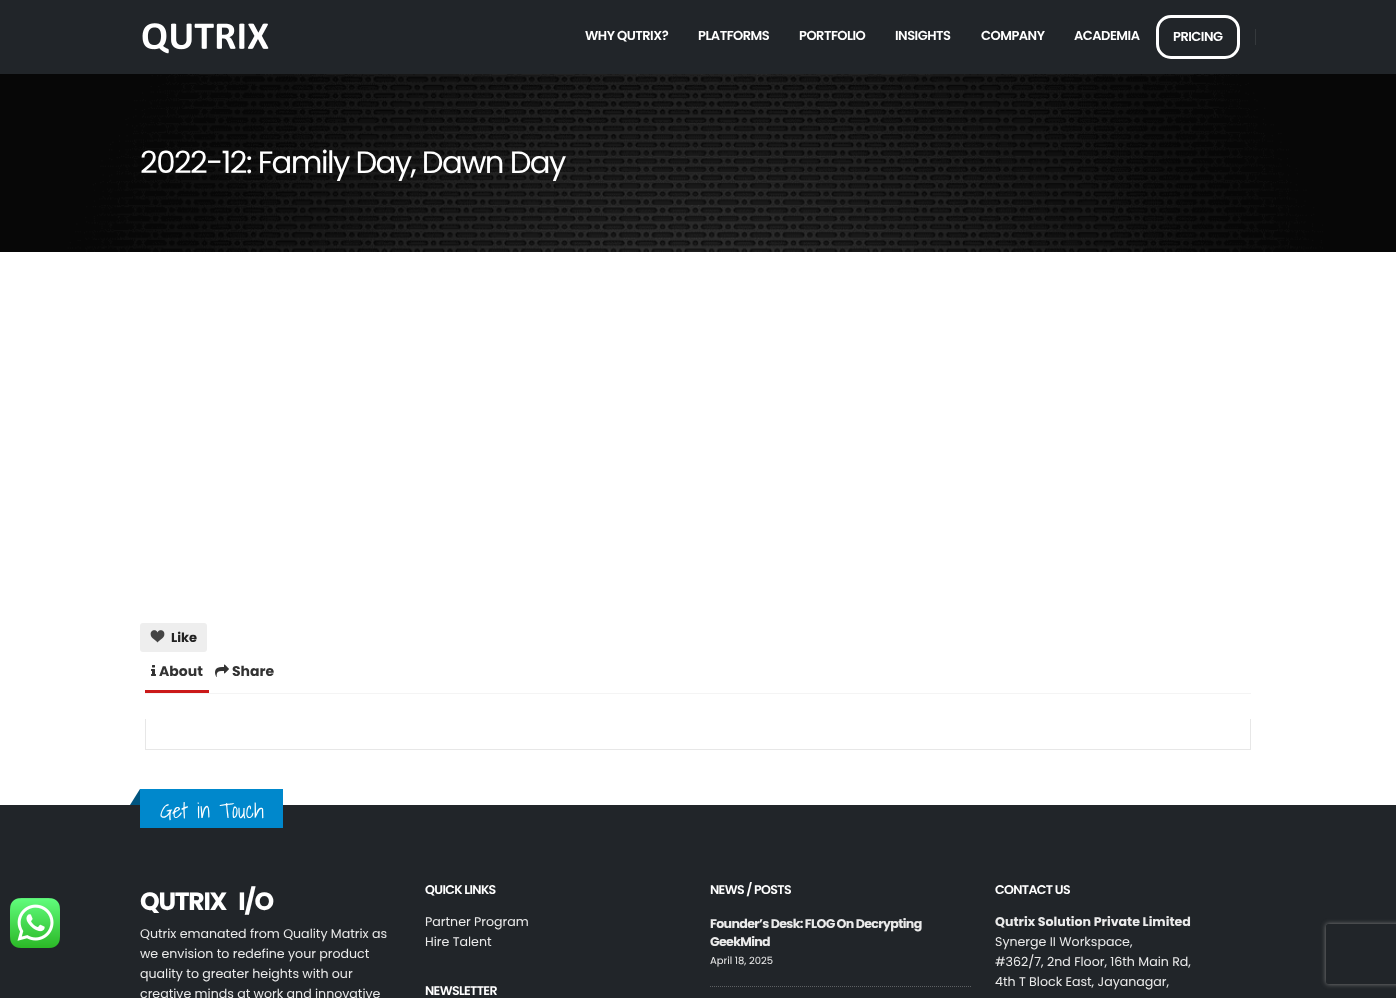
<svg xmlns="http://www.w3.org/2000/svg" width="1396" height="998">
<defs>
<clipPath id="clip1"><path d="M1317 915h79v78h-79zm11 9h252c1 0 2 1 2 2v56c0 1-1 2-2 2h-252c-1 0-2-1-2-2v-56c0-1 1-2 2-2z" clip-rule="evenodd"/></clipPath>
</defs>
<rect width="100%" height="100%" fill="#fff"/>
<rect y="805" width="1396" height="193" fill="#212529"/>
<image x="10" y="898" width="50" height="50" href="media/1.png"/>
<rect width="1396" height="74" fill="#212529"/>
<image x="142" y="23" width="127" height="31" href="media/2.png"/>
<text x="585" y="40" style="font-family:Poppins;font-size:13px;font-weight:600;letter-spacing:-0.5px;fill:#fff">WHY QUTRIX?</text>
<text x="698" y="40" style="font-family:Poppins;font-size:13px;font-weight:600;letter-spacing:-0.5px;fill:#fff">PLATFORMS</text>
<text x="799" y="40" style="font-family:Poppins;font-size:13px;font-weight:600;letter-spacing:-0.5px;fill:#fff">PORTFOLIO</text>
<text x="895" y="40" style="font-family:Poppins;font-size:13px;font-weight:600;letter-spacing:-0.5px;fill:#fff">INSIGHTS</text>
<text x="981" y="40" style="font-family:Poppins;font-size:13px;font-weight:600;letter-spacing:-0.5px;fill:#fff">COMPANY</text>
<text x="1074" y="40" style="font-family:Poppins;font-size:13px;font-weight:600;letter-spacing:-0.5px;fill:#fff">ACADEMIA</text>
<rect x="1157.5" y="16.5" width="81" height="41" rx="13.5" fill="none" stroke="#fff" stroke-width="3"/>
<text x="1173" y="41" style="font-family:Poppins;font-size:13px;font-weight:600;letter-spacing:-0.5px;fill:#fff">PRICING</text>
<rect x="1255" y="29" width="1" height="16" fill="#35393c"/>
<image x="0" y="74" width="1396" height="178" href="media/3.png"/>
<text x="140" y="173" style="font-family:Poppins;font-size:30.75px;letter-spacing:-1.55px;fill:#fff">2022-12: Family Day, Dawn Day</text>
<rect x="140" y="623" width="67" height="29" rx="3" fill="#eee"/>
<image x="150" y="630" width="15" height="13" href="media/4.png"/>
<text x="171" y="642" style="font-family:Poppins;font-size:13px;font-weight:bold;fill:#222">Like</text>
<rect x="145" y="690" width="64" height="3" fill="#cb1919"/>
<image x="151" y="665" width="5" height="11" href="media/5.png"/>
<text x="159" y="676" style="font-family:Poppins;font-size:14px;font-weight:bold;fill:#333">About</text>
<image x="215" y="664" width="14" height="13" href="media/6.png"/>
<text x="232" y="676" style="font-family:Poppins;font-size:14px;font-weight:bold;fill:#333">Share</text>
<rect x="145" y="693" width="1106" height="1" fill="#f4f4f4"/>
<rect x="1250" y="719" width="1" height="31" fill="#e7e7e7"/>
<rect x="145" y="749" width="1106" height="1" fill="#e7e7e7"/>
<rect x="145" y="719" width="1" height="31" fill="#e7e7e7"/>
<rect x="140" y="789" width="143" height="39" fill="#08c"/>
<path d="M140 789v16h-10z" fill="#005580"/>
<text x="160" y="818" style="font-family:Shadows Into Light;font-size:21px;font-weight:300;fill:#fff">Get in Touch</text>
<text x="140" y="910" style="font-family:Poppins;font-size:25px;font-weight:bold;letter-spacing:-1.25px;fill:#fff" xml:space="preserve">QUTRIX   I/O</text>
<text x="140" y="938" style="font-family:Poppins;font-size:12.6px;fill:#eaeaea">Qutrix emanated from Quality Matrix as</text>
<text x="140" y="958" style="font-family:Poppins;font-size:12.6px;fill:#eaeaea">we envision to redefine your product</text>
<text x="140" y="978" style="font-family:Poppins;font-size:12.6px;fill:#eaeaea">quality to greater heights with our</text>
<text x="140" y="998" style="font-family:Poppins;font-size:12.6px;fill:#eaeaea">creative minds at work and innovative</text>
<text x="425" y="894" style="font-family:Poppins;font-size:12.6px;font-weight:600;letter-spacing:-0.65px;fill:#fff">QUICK LINKS</text>
<text x="425" y="926" style="font-family:Poppins;font-size:12.6px;fill:#eaeaea">Partner Program</text>
<text x="425" y="946" style="font-family:Poppins;font-size:12.6px;fill:#eaeaea">Hire Talent</text>
<text x="425" y="995" style="font-family:Poppins;font-size:12.6px;font-weight:600;letter-spacing:-0.65px;fill:#fff">NEWSLETTER</text>
<text x="710" y="894" style="font-family:Poppins;font-size:12.6px;font-weight:600;letter-spacing:-0.65px;fill:#fff">NEWS / POSTS</text>
<text x="710" y="928" style="font-family:Poppins;font-size:12.6px;font-weight:bold;letter-spacing:-0.65px;fill:#eaeaea">Founder’s Desk: FLOG On Decrypting</text>
<text x="710" y="946" style="font-family:Poppins;font-size:12.6px;font-weight:bold;letter-spacing:-0.65px;fill:#eaeaea">GeekMind</text>
<text x="710" y="964" style="font-family:Poppins;font-size:10px;fill:#eaeaea">April 18, 2025</text>
<path d="M710 986.5h261" fill="none" stroke="#5d6063" stroke-dasharray="1 1"/>
<text x="995" y="894" style="font-family:Poppins;font-size:12.6px;font-weight:600;letter-spacing:-0.65px;fill:#fff">CONTACT US</text>
<text x="995" y="926" style="font-family:Poppins;font-size:12.6px;font-weight:bold;fill:#eaeaea">Qutrix Solution Private Limited</text>
<text x="995" y="946" style="font-family:Poppins;font-size:12.6px;fill:#eaeaea">Synerge II Workspace,</text>
<text x="995" y="966" style="font-family:Poppins;font-size:12.6px;fill:#eaeaea">#362/7, 2nd Floor, 16th Main Rd,</text>
<text x="995" y="986" style="font-family:Poppins;font-size:12.6px;fill:#eaeaea">4th T Block East, Jayanagar,</text>
<g clip-path="url(#clip1)">
<rect x="1326" y="924" width="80" height="60" rx="2" fill="#808080" filter="blur(2.5px)"/>
</g>
</svg>
